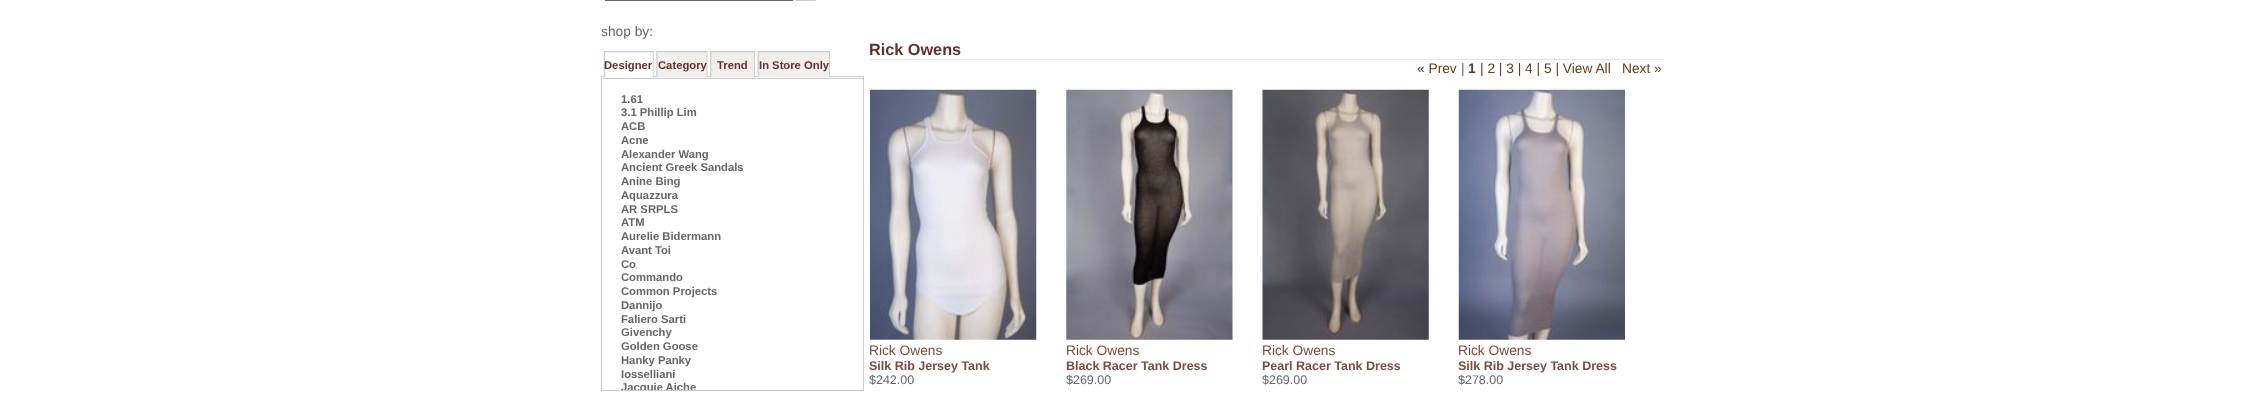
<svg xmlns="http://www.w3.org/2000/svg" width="2268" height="401">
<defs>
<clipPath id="clip1"><rect x="603" y="78" width="260" height="312"/></clipPath>
</defs>
<rect width="100%" height="100%" fill="#fff"/>
<rect x="605.5" y="-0.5" width="187" height="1" fill="none" stroke="#676767"/>
<image x="796" y="0" width="21" height="1" href="media/1.png"/>
<text x="601" y="36" style="font-family:Liberation Sans;font-size:13.75px;fill:#666">shop by:</text>
<rect x="601.5" y="76.5" width="262" height="314" fill="none" stroke="#cbcbcb"/>
<image x="603" y="51" width="51" height="27" href="media/2.png"/>
<image x="603" y="51" width="50" height="27" href="media/3.png"/>
<text x="604" y="69" style="font-family:Liberation Sans;font-size:11.25px;font-weight:bold;fill:#623226">Designer</text>
<image x="656" y="51" width="52" height="27" href="media/4.png"/>
<image x="656" y="51" width="51" height="27" href="media/5.png"/>
<text x="658" y="69" style="font-family:Liberation Sans;font-size:11.25px;font-weight:bold;fill:#623226">Category</text>
<image x="710" y="51" width="45" height="27" href="media/6.png"/>
<image x="710" y="52" width="44" height="26" href="media/7.png"/>
<text x="717" y="69" style="font-family:Liberation Sans;font-size:11.25px;font-weight:bold;fill:#623226">Trend</text>
<image x="757" y="51" width="73" height="27" href="media/8.png"/>
<image x="757" y="51" width="72" height="27" href="media/9.png"/>
<text x="759" y="69" style="font-family:Liberation Sans;font-size:11.25px;font-weight:bold;fill:#623226">In Store Only</text>
<rect x="603" y="78" width="260" height="1" fill="#ccc"/>
<text x="621" y="103" style="font-family:Liberation Sans;font-size:11.25px;font-weight:bold;fill:#666">1.61</text>
<text x="621" y="116" style="font-family:Liberation Sans;font-size:11.25px;font-weight:bold;fill:#666">3.1 Phillip Lim</text>
<text x="621" y="130" style="font-family:Liberation Sans;font-size:11.25px;font-weight:bold;fill:#666">ACB</text>
<text x="621" y="144" style="font-family:Liberation Sans;font-size:11.25px;font-weight:bold;fill:#666">Acne</text>
<text x="621" y="158" style="font-family:Liberation Sans;font-size:11.25px;font-weight:bold;fill:#666">Alexander Wang</text>
<text x="621" y="171" style="font-family:Liberation Sans;font-size:11.25px;font-weight:bold;fill:#666">Ancient Greek Sandals</text>
<text x="621" y="185" style="font-family:Liberation Sans;font-size:11.25px;font-weight:bold;fill:#666">Anine Bing</text>
<text x="621" y="199" style="font-family:Liberation Sans;font-size:11.25px;font-weight:bold;fill:#666">Aquazzura</text>
<text x="621" y="213" style="font-family:Liberation Sans;font-size:11.25px;font-weight:bold;fill:#666">AR SRPLS</text>
<text x="621" y="226" style="font-family:Liberation Sans;font-size:11.25px;font-weight:bold;fill:#666">ATM</text>
<text x="621" y="240" style="font-family:Liberation Sans;font-size:11.25px;font-weight:bold;fill:#666">Aurelie Bidermann</text>
<text x="621" y="254" style="font-family:Liberation Sans;font-size:11.25px;font-weight:bold;fill:#666">Avant Toi</text>
<text x="621" y="268" style="font-family:Liberation Sans;font-size:11.25px;font-weight:bold;fill:#666">Co</text>
<text x="621" y="281" style="font-family:Liberation Sans;font-size:11.25px;font-weight:bold;fill:#666">Commando</text>
<text x="621" y="295" style="font-family:Liberation Sans;font-size:11.25px;font-weight:bold;fill:#666">Common Projects</text>
<text x="621" y="309" style="font-family:Liberation Sans;font-size:11.25px;font-weight:bold;fill:#666">Dannijo</text>
<text x="621" y="323" style="font-family:Liberation Sans;font-size:11.25px;font-weight:bold;fill:#666">Faliero Sarti</text>
<text x="621" y="336" style="font-family:Liberation Sans;font-size:11.25px;font-weight:bold;fill:#666">Givenchy</text>
<text x="621" y="350" style="font-family:Liberation Sans;font-size:11.25px;font-weight:bold;fill:#666">Golden Goose</text>
<text x="621" y="364" style="font-family:Liberation Sans;font-size:11.25px;font-weight:bold;fill:#666">Hanky Panky</text>
<text x="621" y="378" style="font-family:Liberation Sans;font-size:11.25px;font-weight:bold;fill:#666">Iosselliani</text>
<g clip-path="url(#clip1)">
<text x="621" y="391" style="font-family:Liberation Sans;font-size:11.25px;font-weight:bold;fill:#666">Jacquie Aiche</text>
</g>
<rect x="870" y="59" width="793" height="1" fill="#e6e6e6"/>
<text x="869" y="55" style="font-family:Liberation Sans;font-size:16.25px;font-weight:bold;fill:#623226">Rick Owens</text>
<text x="1417" y="73" style="font-family:Liberation Sans;font-size:13.75px;fill:#673c12">« Prev</text>
<text x="1461" y="73" style="font-family:Liberation Sans;font-size:13.75px;fill:#666">|</text>
<text x="1468" y="73" style="font-family:Liberation Sans;font-size:13.75px;font-weight:bold;fill:#673c12">1</text>
<text x="1480" y="73" style="font-family:Liberation Sans;font-size:13.75px;fill:#673c12">| 2 | 3 | 4 | 5 | View All</text>
<text x="1622" y="73" style="font-family:Liberation Sans;font-size:13.75px;fill:#673c12">Next »</text>
<image x="870" y="89" width="167" height="251" href="media/10.png"/>
<text x="869" y="355" style="font-family:Liberation Sans;font-size:13.75px;fill:#7b4c3c">Rick Owens</text>
<text x="869" y="370" style="font-family:Liberation Sans;font-size:12.5px;font-weight:bold;fill:#7b4c3c">Silk Rib Jersey Tank</text>
<text x="869" y="384" style="font-family:Liberation Sans;font-size:12.5px;fill:#666">$242.00</text>
<image x="1066" y="89" width="167" height="251" href="media/11.png"/>
<text x="1066" y="355" style="font-family:Liberation Sans;font-size:13.75px;fill:#7b4c3c">Rick Owens</text>
<text x="1066" y="370" style="font-family:Liberation Sans;font-size:12.5px;font-weight:bold;fill:#7b4c3c">Black Racer Tank Dress</text>
<text x="1066" y="384" style="font-family:Liberation Sans;font-size:12.5px;fill:#666">$269.00</text>
<image x="1262" y="89" width="167" height="251" href="media/12.png"/>
<text x="1262" y="355" style="font-family:Liberation Sans;font-size:13.75px;fill:#7b4c3c">Rick Owens</text>
<text x="1262" y="370" style="font-family:Liberation Sans;font-size:12.5px;font-weight:bold;fill:#7b4c3c">Pearl Racer Tank Dress</text>
<text x="1262" y="384" style="font-family:Liberation Sans;font-size:12.5px;fill:#666">$269.00</text>
<image x="1458" y="89" width="167" height="251" href="media/13.png"/>
<text x="1458" y="355" style="font-family:Liberation Sans;font-size:13.75px;fill:#7b4c3c">Rick Owens</text>
<text x="1458" y="370" style="font-family:Liberation Sans;font-size:12.5px;font-weight:bold;fill:#7b4c3c">Silk Rib Jersey Tank Dress</text>
<text x="1458" y="384" style="font-family:Liberation Sans;font-size:12.5px;fill:#666">$278.00</text>
</svg>
